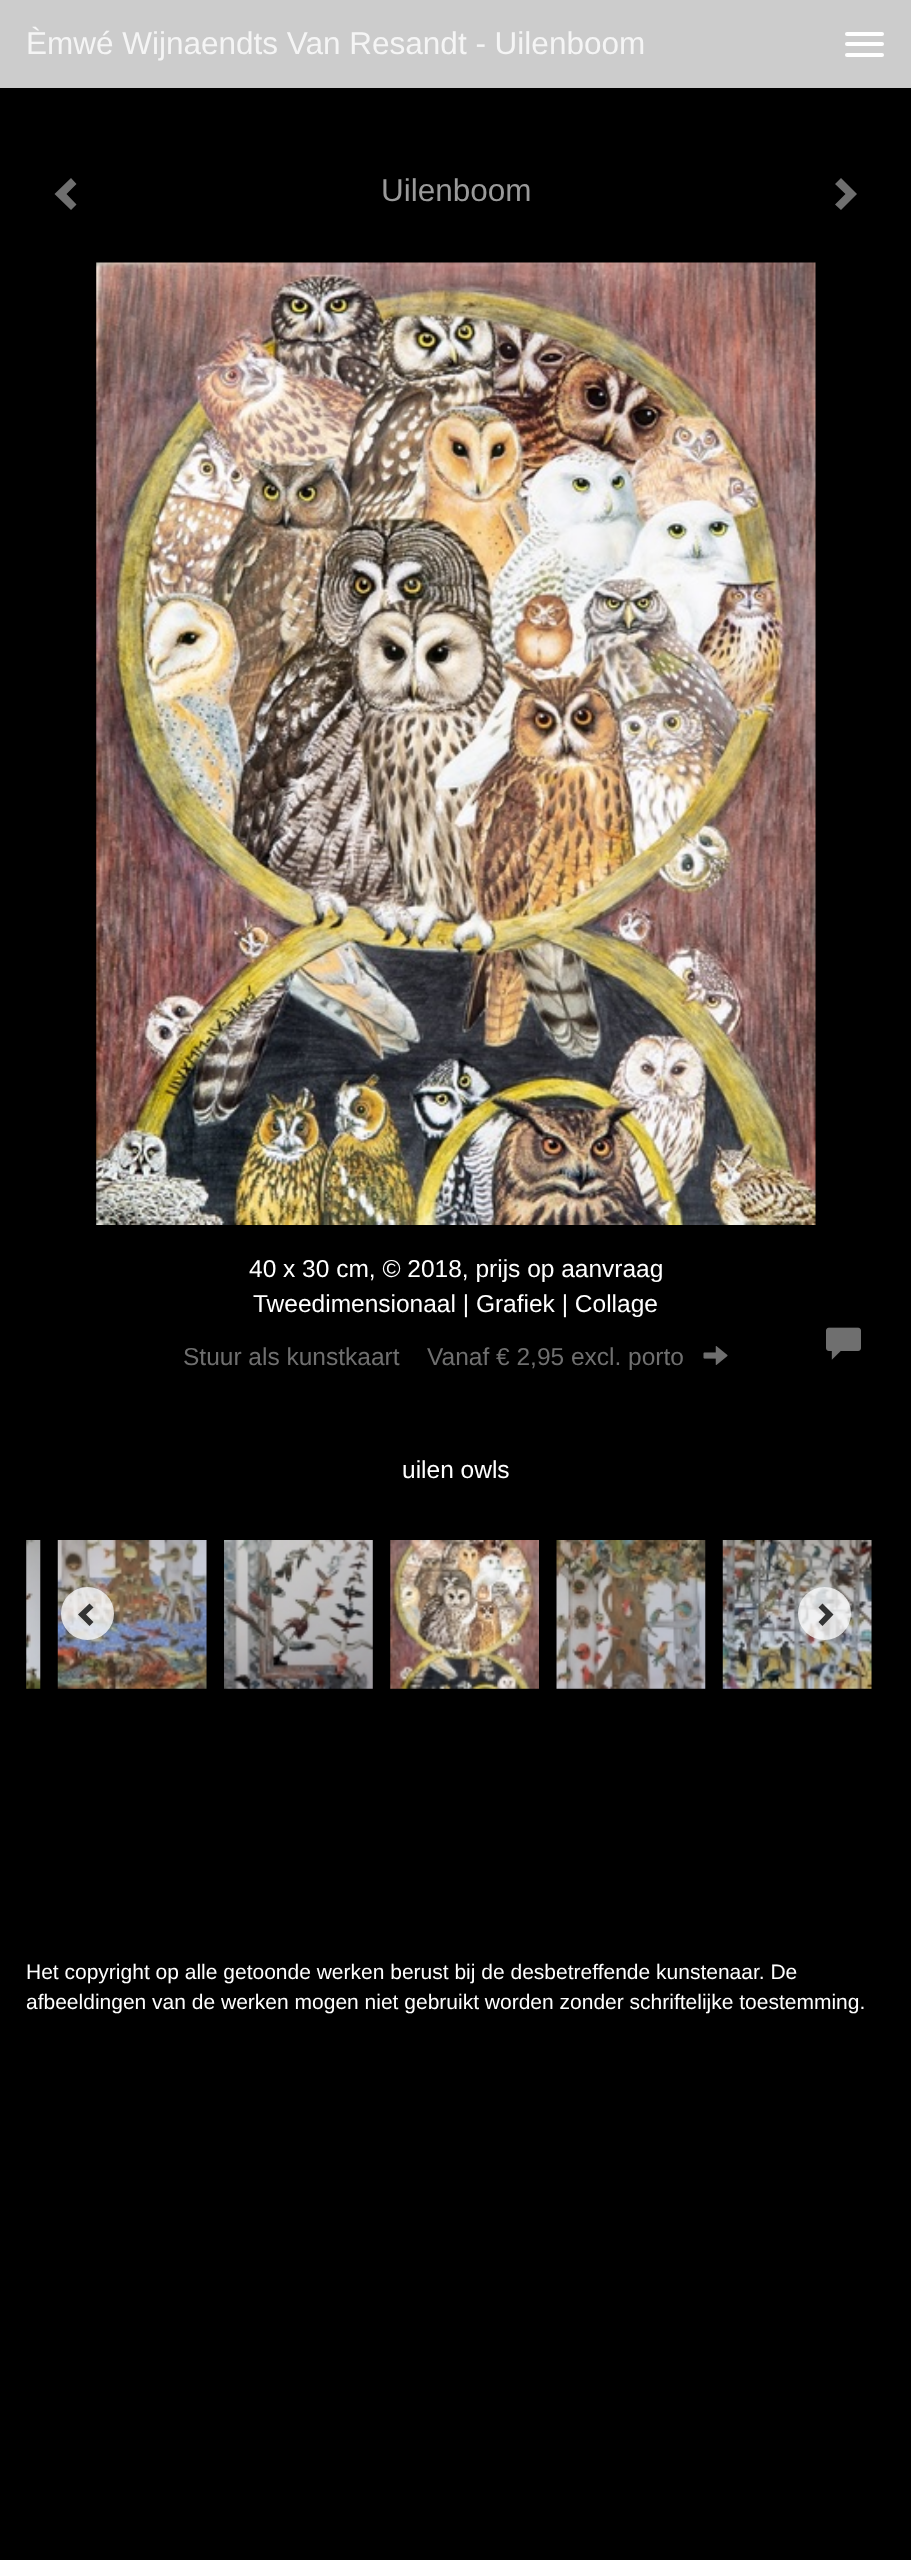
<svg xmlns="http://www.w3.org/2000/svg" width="911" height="2560">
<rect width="100%" height="100%" fill="#000"/>
<rect width="911" height="88" fill="#ccc"/>
<text x="26" y="54" style="font-family:Liberation Sans;font-size:31.5px;fill:#f5f5f5">Èmwé Wijnaendts Van Resandt - Uilenboom</text>
<rect x="845" y="32" width="39" height="4" rx="2" fill="#fff"/>
<rect x="845" y="42" width="39" height="4" rx="2" fill="#fff"/>
<rect x="845" y="53" width="39" height="4" rx="2" fill="#fff"/>
<path d="M76.5 184l-10 10l10 10.5l-5.5 5.5l-16.5-16l16.5-16z" fill="#6f6f6f"/>
<text x="381" y="201" style="font-family:Liberation Sans;font-size:31.5px;fill:#9a9a9a">Uilenboom</text>
<path d="M857 194l-16 16l-6-5.5l10.5-10.5l-10.5-10l6-6z" fill="#6f6f6f"/>
<image x="96" y="262" width="720" height="963" href="media/1.png"/>
<text x="249" y="1277" style="font-family:Liberation Sans;font-size:24.5px;fill:#fff">40 x 30 cm, © 2018, prijs op aanvraag</text>
<text x="253" y="1312" style="font-family:Liberation Sans;font-size:24.5px;fill:#fff">Tweedimensionaal | Grafiek | Collage</text>
<text x="183" y="1365" style="font-family:Liberation Sans;font-size:24.5px;fill:#6f6f6f">Stuur als kunstkaart</text>
<text x="427" y="1365" style="font-family:Liberation Sans;font-size:24.5px;fill:#6f6f6f">Vanaf € 2,95 excl. porto</text>
<image x="703" y="1346" width="25" height="19" href="media/2.png"/>
<image x="826" y="1327" width="35" height="33" href="media/3.png"/>
<text x="402" y="1478" style="font-family:Liberation Sans;font-size:24.5px;fill:#fff">uilen owls</text>
<image x="26" y="1540" width="15" height="149" href="media/4.png"/>
<image x="57" y="1540" width="150" height="149" href="media/5.png"/>
<image x="224" y="1540" width="149" height="149" href="media/6.png"/>
<image x="390" y="1540" width="149" height="149" href="media/7.png"/>
<image x="556" y="1540" width="150" height="149" href="media/8.png"/>
<image x="722" y="1540" width="150" height="149" href="media/9.png"/>
<circle cx="87.5" cy="1613.5" r="26.5" fill="#ffffffbf"/>
<path d="M93.5 1607.5l-7.5 7l7.5 7.5l-4 4l-11.5-11.5l11.5-11z" fill="#333"/>
<circle cx="824.5" cy="1613.5" r="26.5" fill="#ffffffbf"/>
<path d="M833.5 1614.5l-11 11.5l-4-4l7-7.5l-7-7l4-4z" fill="#333"/>
<text x="26" y="1979" style="font-family:Liberation Sans;font-size:21px;fill:#fff">Het copyright op alle getoonde werken berust bij de desbetreffende kunstenaar. De</text>
<text x="26" y="2009" style="font-family:Liberation Sans;font-size:21px;fill:#fff">afbeeldingen van de werken mogen niet gebruikt worden zonder schriftelijke toestemming.</text>
</svg>
